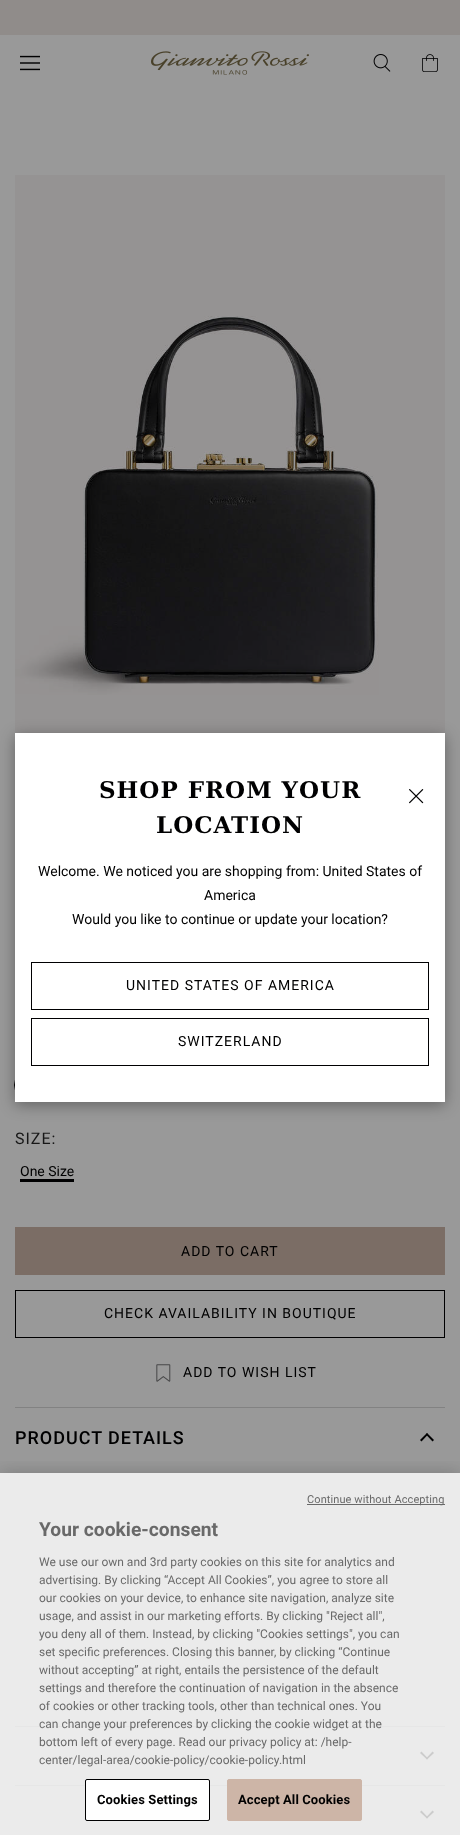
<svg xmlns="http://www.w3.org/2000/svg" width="460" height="1835">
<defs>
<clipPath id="clip1"><rect x="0" y="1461" width="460" height="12"/></clipPath>
</defs>
<rect width="100%" height="100%" fill="#999"/>
<rect width="460" height="35" fill="#908c8a"/>
<image x="20" y="55" width="20" height="16" href="media/1.png"/>
<image x="151" y="51" width="158" height="24" href="media/2.png"/>
<image x="373" y="54" width="18" height="18" href="media/3.png"/>
<image x="422" y="54" width="16" height="18" href="media/4.png"/>
<rect x="15" y="175" width="430" height="558" fill="#959393"/>
<circle cx="27" cy="1085" r="12.5" fill="none" stroke="#000001"/>
<rect x="15" y="736" width="430" height="369" fill="#00000059" filter="blur(7.5px)"/>
<rect x="15" y="733" width="430" height="369" fill="#fff"/>
<text x="99" y="798" style="font-family:DejaVu Serif;font-size:23px;font-weight:bold;letter-spacing:1px;fill:#000001">SHOP FROM YOUR</text>
<text x="156" y="833" style="font-family:DejaVu Serif;font-size:23px;font-weight:bold;letter-spacing:1px;fill:#000001">LOCATION</text>
<image x="409" y="789" width="15" height="15" href="media/5.png"/>
<text x="38" y="876" style="font-family:Roboto;font-size:14px;fill:#000001">Welcome. We noticed you are shopping from: United States of</text>
<text x="204" y="900" style="font-family:Roboto;font-size:14px;fill:#000001">America</text>
<text x="72" y="924" style="font-family:Roboto;font-size:14px;fill:#000001">Would you like to continue or update your location?</text>
<rect x="31.5" y="962.5" width="397" height="47" fill="none" stroke="#000001"/>
<text x="126" y="990" style="font-family:Roboto;font-size:14px;letter-spacing:1px;fill:#000001">UNITED STATES OF AMERICA</text>
<rect x="31.5" y="1018.5" width="397" height="47" fill="none" stroke="#000001"/>
<text x="178" y="1046" style="font-family:Roboto;font-size:14px;letter-spacing:1px;fill:#000001">SWITZERLAND</text>
<image x="15" y="316" width="364" height="379" href="media/6.png"/>
<text x="15" y="1144" style="font-family:Roboto;font-size:16px;letter-spacing:1px;fill:#171717">SIZE:</text>
<text x="20" y="1176" style="font-family:Roboto;font-size:14px;fill:#000001">One Size</text>
<rect x="20" y="1179" width="54" height="3" fill="#000001"/>
<rect x="15" y="1227" width="430" height="48" fill="#7b6d65"/>
<text x="181" y="1256" style="font-family:Roboto;font-size:14px;letter-spacing:1px;fill:#000001">ADD TO CART</text>
<rect x="15.5" y="1290.5" width="429" height="47" fill="none" stroke="#000001"/>
<text x="104" y="1318" style="font-family:Roboto;font-size:14px;letter-spacing:1px;fill:#000001">CHECK AVAILABILITY IN BOUTIQUE</text>
<image x="156" y="1364" width="15" height="18" href="media/7.png"/>
<text x="183" y="1377" style="font-family:Roboto;font-size:14px;letter-spacing:1px;fill:#000001">ADD TO WISH LIST</text>
<rect x="15" y="1407" width="430" height="1" fill="#828282"/>
<rect x="15" y="1726" width="430" height="1" fill="#828282"/>
<text x="15" y="1444" style="font-family:Roboto;font-size:18px;font-weight:500;letter-spacing:1px;fill:#000001">PRODUCT DETAILS</text>
<path d="M420 1440l7-7l1 1.5l-6.5 7z" fill="#000001"/>
<path d="M427 1433l7 7l-1.5 1.5l-6.5-7z" fill="#000001"/>
<rect x="15" y="1785" width="430" height="1" fill="#828282"/>
<path d="M421.5 1751.5l6.5 7l-1 1l-7-6.5z" fill="#000001"/>
<path d="M426 1758.5l6.5-7l1.5 1.5l-7 6.5z" fill="#000001"/>
<path d="M421.5 1810.5l6.5 7l-1 1l-7-6.5z" fill="#000001"/>
<path d="M426 1817.5l6.5-7l1.5 1.5l-7 6.5z" fill="#000001"/>
<g clip-path="url(#clip1)">
<rect y="1473" width="460" height="362" fill="#00000033" filter="blur(9px)"/>
</g>
<rect y="1473" width="460" height="362" fill="#ffffffcc"/>
<rect x="307" y="1504" width="138" height="1" fill="#696969"/>
<text x="307" y="1503" style="font-family:Roboto;font-size:11px;letter-spacing:0.1px;fill:#696969">Continue without Accepting</text>
<text x="39" y="1536" style="font-family:Roboto;font-size:19.25px;font-weight:bold;fill:#696969">Your cookie-consent</text>
<text x="39" y="1566" style="font-family:Roboto;font-size:12px;fill:#696969">We use our own and 3rd party cookies on this site for analytics and</text>
<text x="39" y="1584" style="font-family:Roboto;font-size:12px;fill:#696969">advertising. By clicking “Accept All Cookies”, you agree to store all</text>
<text x="39" y="1602" style="font-family:Roboto;font-size:12px;fill:#696969">our cookies on your device, to enhance site navigation, analyze site</text>
<text x="39" y="1620" style="font-family:Roboto;font-size:12px;fill:#696969">usage, and assist in our marketing efforts. By clicking "Reject all",</text>
<text x="39" y="1638" style="font-family:Roboto;font-size:12px;fill:#696969">you deny all of them. Instead, by clicking "Cookies settings", you can</text>
<text x="39" y="1656" style="font-family:Roboto;font-size:12px;fill:#696969">set specific preferences. Closing this banner, by clicking “Continue</text>
<text x="39" y="1674" style="font-family:Roboto;font-size:12px;fill:#696969">without accepting” at right, entails the persistence of the default</text>
<text x="39" y="1692" style="font-family:Roboto;font-size:12px;fill:#696969">settings and therefore the continuation of navigation in the absence</text>
<text x="39" y="1710" style="font-family:Roboto;font-size:12px;fill:#696969">of cookies or other tracking tools, other than technical ones. You</text>
<text x="39" y="1728" style="font-family:Roboto;font-size:12px;fill:#696969">can change your preferences by clicking the cookie widget at the</text>
<text x="39" y="1746" style="font-family:Roboto;font-size:12px;fill:#696969">bottom left of every page. Read our privacy policy at: /help-</text>
<text x="39" y="1764" style="font-family:Roboto;font-size:12px;fill:#696969">center/legal-area/cookie-policy/cookie-policy.html</text>
<rect x="85.5" y="1779.5" width="124" height="41" rx="1.5" fill="#fff" stroke="#000001"/>
<text x="97" y="1804" style="font-family:Roboto;font-size:13px;font-weight:bold;letter-spacing:0.1px;fill:#000001">Cookies Settings</text>
<rect x="227.5" y="1779.5" width="134" height="41" rx="1.5" fill="#cdb5a7" stroke="#cdb5a7"/>
<text x="238" y="1804" style="font-family:Roboto;font-size:13px;font-weight:bold;letter-spacing:0.1px;fill:#000001">Accept All Cookies</text>
</svg>
